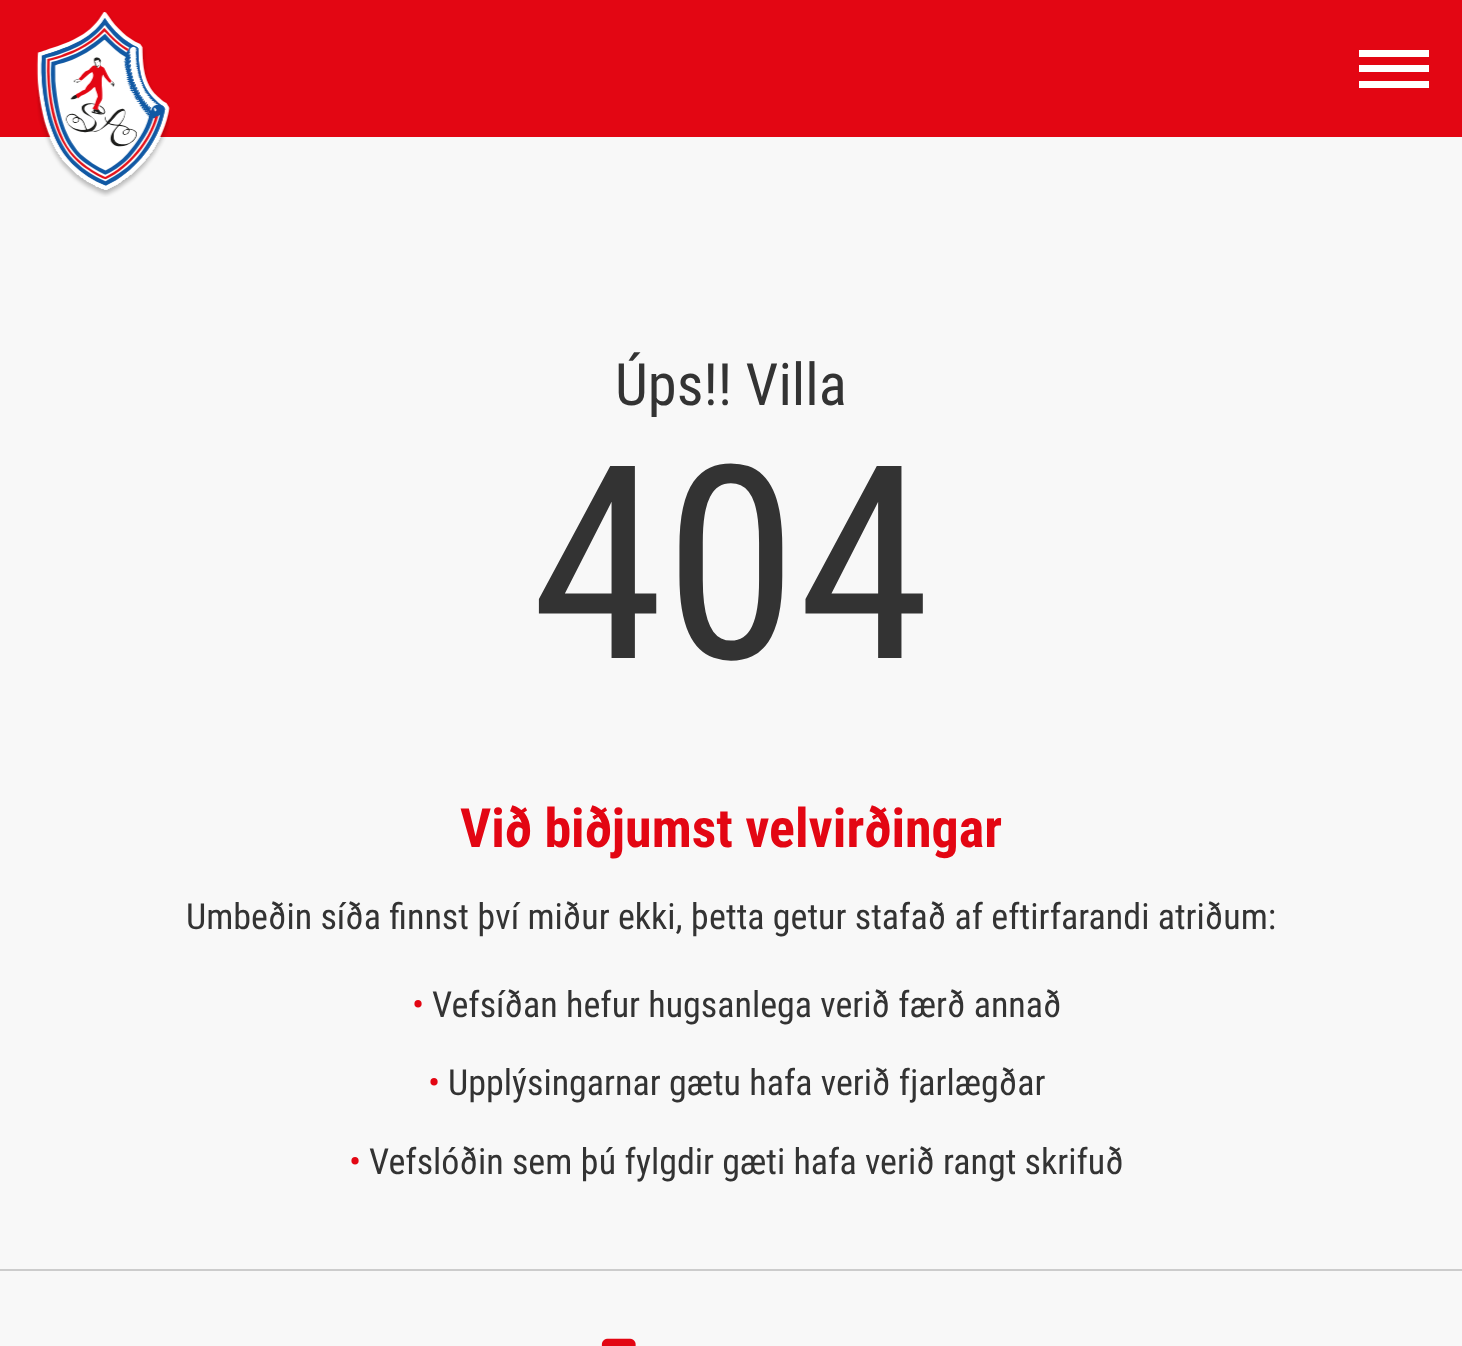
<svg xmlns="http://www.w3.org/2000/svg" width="1462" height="1346">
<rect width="100%" height="100%" fill="#f8f8f8"/>
<rect width="1462" height="137" fill="#e30613"/>
<image x="36" y="12" width="134" height="185" href="media/1.png"/>
<rect x="1359" y="50" width="70" height="7" fill="#fff"/>
<rect x="1359" y="65" width="70" height="7" fill="#fff"/>
<rect x="1359" y="81" width="70" height="7" fill="#fff"/>
<text x="615" y="405" style="font-family:Roboto Condensed;font-size:58.5px;fill:#333">Úps!! Villa</text>
<text x="531" y="658" style="font-family:Roboto Condensed;font-size:270px;fill:#333">404</text>
<text x="460" y="847" style="font-family:Roboto Condensed;font-size:54px;font-weight:bold;fill:#e30613">Við biðjumst velvirðingar</text>
<text x="186" y="929" style="font-family:Roboto Condensed;font-size:36px;fill:#333">Umbeðin síða finnst því miður ekki, þetta getur stafað af eftirfarandi atriðum:</text>
<text x="412" y="1017" style="font-family:Roboto Condensed;font-size:36px;fill:#e30613">•</text>
<text x="432" y="1017" style="font-family:Roboto Condensed;font-size:36px;fill:#333">Vefsíðan hefur hugsanlega verið færð annað</text>
<text x="428" y="1095" style="font-family:Roboto Condensed;font-size:36px;fill:#e30613">•</text>
<text x="448" y="1095" style="font-family:Roboto Condensed;font-size:36px;fill:#333">Upplýsingarnar gætu hafa verið fjarlægðar</text>
<text x="349" y="1174" style="font-family:Roboto Condensed;font-size:36px;fill:#e30613">•</text>
<text x="369" y="1174" style="font-family:Roboto Condensed;font-size:36px;fill:#333">Vefslóðin sem þú fylgdir gæti hafa verið rangt skrifuð</text>
<rect y="1269" width="1462" height="2" fill="#ccc"/>
<image x="601" y="1338" width="35" height="8" href="media/2.png"/>
</svg>
